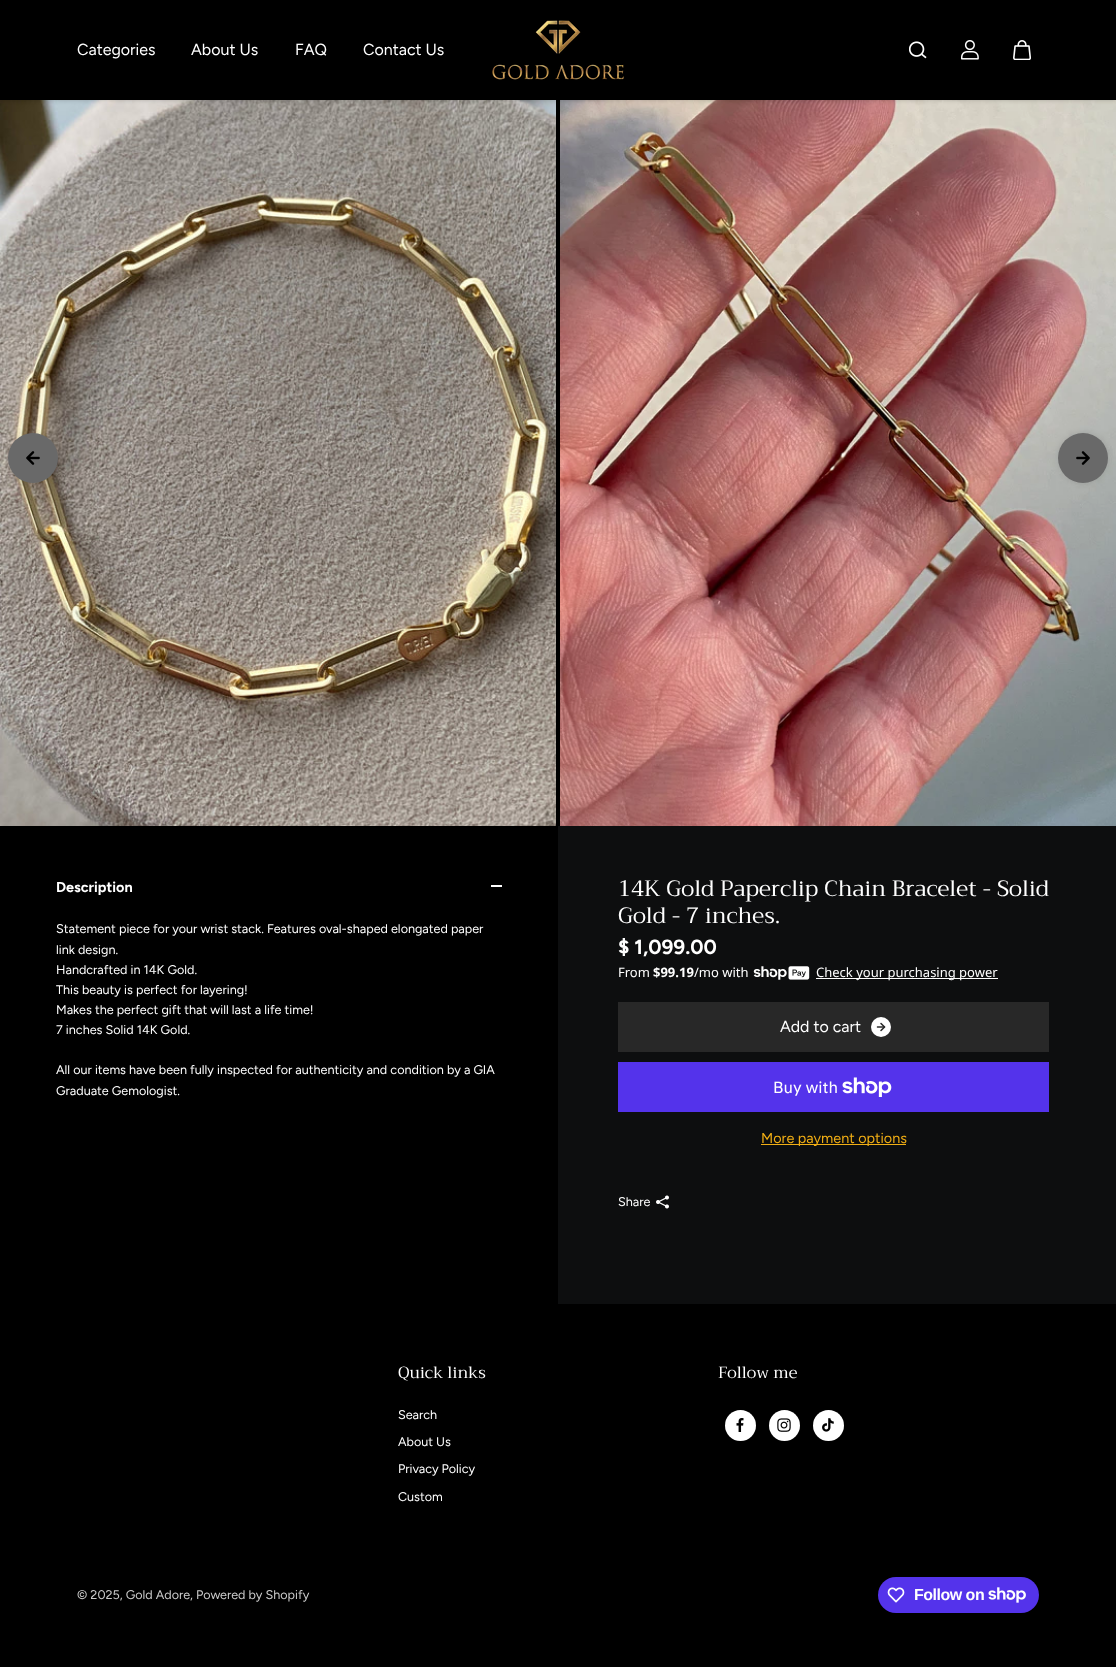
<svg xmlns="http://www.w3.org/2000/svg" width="1116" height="1667">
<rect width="100%" height="100%" fill="#000"/>
<image x="0" y="100" width="556" height="726" href="media/5.png"/>
<image x="560" y="100" width="556" height="726" href="media/6.png"/>
<rect width="1116" height="100" fill="#00000036" filter="blur(2px)"/>
<text x="77" y="55" style="font-family:Figtree;font-size:16px;fill:#fff">Categories</text>
<text x="191" y="55" style="font-family:Figtree;font-size:16px;fill:#fff">About Us</text>
<text x="295" y="55" style="font-family:Figtree;font-size:16px;fill:#fff">FAQ</text>
<text x="363" y="55" style="font-family:Figtree;font-size:16px;fill:#fff">Contact Us</text>
<image x="492" y="20" width="132" height="60" href="media/1.png"/>
<image x="909" y="41" width="18" height="18" href="media/2.png"/>
<image x="961" y="40" width="18" height="20" href="media/3.png"/>
<image x="1013" y="40" width="18" height="20" href="media/4.png"/>
<rect x="8" y="433" width="50" height="50" rx="25" fill="#0000001f" filter="blur(3px)"/>
<circle cx="33" cy="458" r="25" fill="#696969"/>
<image x="26" y="451" width="14" height="14" href="media/7.png"/>
<rect x="1058" y="433" width="50" height="50" rx="25" fill="#0000001f" filter="blur(3px)"/>
<circle cx="1083" cy="458" r="25" fill="#696969"/>
<image x="1076" y="451" width="14" height="14" href="media/8.png"/>
<rect x="558" y="826" width="558" height="478" fill="#0d0e0f"/>
<text x="56" y="892" style="font-family:Figtree;font-size:14.4px;font-weight:bold;fill:#fff">Description</text>
<rect x="491" y="885" width="11" height="2" fill="#fff"/>
<text x="56" y="933" style="font-family:Figtree;font-size:12.6px;fill:#fff">Statement piece for your wrist stack. Features oval-shaped elongated paper</text>
<text x="56" y="954" style="font-family:Figtree;font-size:12.6px;fill:#fff">link design.</text>
<text x="56" y="974" style="font-family:Figtree;font-size:12.6px;fill:#fff">Handcrafted in 14K Gold.</text>
<text x="56" y="994" style="font-family:Figtree;font-size:12.6px;fill:#fff">This beauty is perfect for layering!</text>
<text x="56" y="1014" style="font-family:Figtree;font-size:12.6px;fill:#fff">Makes the perfect gift that will last a life time!</text>
<text x="56" y="1034" style="font-family:Figtree;font-size:12.6px;fill:#fff">7 inches Solid 14K Gold.</text>
<text x="56" y="1074" style="font-family:Figtree;font-size:12.6px;fill:#fff">All our items have been fully inspected for authenticity and condition by a GIA</text>
<text x="56" y="1095" style="font-family:Figtree;font-size:12.6px;fill:#fff">Graduate Gemologist.</text>
<text x="618" y="896" style="font-family:Trirong;font-size:22.25px;fill:#fff">14K Gold Paperclip Chain Bracelet - Solid</text>
<text x="618" y="923" style="font-family:Trirong;font-size:22.25px;fill:#fff">Gold - 7 inches.</text>
<text x="618" y="954" style="font-family:Figtree;font-size:20.5px;font-weight:bold;fill:#fff">$ 1,099.00</text>
<text x="618" y="977" style="font-family:Noto Sans;font-size:13px;fill:#fff">From</text>
<text x="653" y="977" style="font-family:Noto Sans;font-size:13px;font-weight:bold;fill:#fff">$99.19</text>
<text x="694" y="977" style="font-family:Noto Sans;font-size:13px;fill:#fff">/mo with</text>
<image x="753" y="966" width="57" height="14" href="media/9.png"/>
<rect x="816" y="978" width="182" height="1" fill="#fff"/>
<text x="816" y="977" style="font-family:Noto Sans;font-size:13px;fill:#fff">Check your purchasing power</text>
<rect x="618" y="1002" width="431" height="50" fill="#282828"/>
<text x="780" y="1032" style="font-family:Figtree;font-size:16px;fill:#fff">Add to cart</text>
<circle cx="881" cy="1027" r="10" fill="#fff"/>
<image x="876" y="1022" width="10" height="10" href="media/10.png"/>
<rect x="618" y="1062" width="431" height="50" fill="#5433eb"/>
<text x="773" y="1093" style="font-family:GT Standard;font-size:16px;fill:#fff">Buy with</text>
<image x="842" y="1077" width="50" height="20" href="media/11.png"/>
<rect x="761" y="1144" width="145" height="1" fill="#f1ae14"/>
<text x="761" y="1143" style="font-family:Figtree;font-size:14.4px;fill:#f1ae14">More payment options</text>
<text x="618" y="1206" style="font-family:Figtree;font-size:12.6px;fill:#fff">Share</text>
<image x="656" y="1195" width="13" height="14" href="media/12.png"/>
<text x="398" y="1378" style="font-family:Trirong;font-size:16.25px;fill:#fff">Quick links</text>
<text x="398" y="1419" style="font-family:Figtree;font-size:12.6px;fill:#fff">Search</text>
<text x="398" y="1446" style="font-family:Figtree;font-size:12.6px;fill:#fff">About Us</text>
<text x="398" y="1473" style="font-family:Figtree;font-size:12.6px;fill:#fff">Privacy Policy</text>
<text x="398" y="1501" style="font-family:Figtree;font-size:12.6px;fill:#fff">Custom</text>
<text x="718" y="1378" style="font-family:Trirong;font-size:16.25px;fill:#fff">Follow me</text>
<circle cx="740.5" cy="1425.5" r="15.5" fill="#fff"/>
<image x="736" y="1418" width="8" height="14" href="media/13.png"/>
<circle cx="784.5" cy="1425.5" r="15.5" fill="#fff"/>
<image x="777" y="1418" width="14" height="14" href="media/14.png"/>
<circle cx="828.5" cy="1425.5" r="15.5" fill="#fff"/>
<image x="822" y="1418" width="12" height="14" href="media/15.png"/>
<text x="77" y="1599" style="font-family:Figtree;font-size:12.6px;fill:#ccc">© 2025, Gold Adore, Powered by Shopify</text>
<rect x="878" y="1577" width="161" height="36" rx="18" fill="#5433eb"/>
<image x="887" y="1587" width="18" height="16" href="media/16.png"/>
<text x="914" y="1600" style="font-family:Liberation Sans;font-size:16px;font-weight:bold;letter-spacing:-0.5px;fill:#fff">Follow on</text>
<image x="988" y="1587" width="38" height="16" href="media/17.png"/>
</svg>
